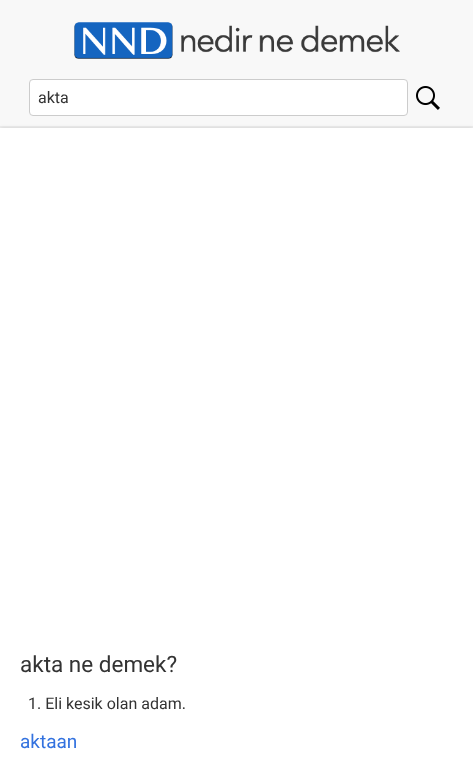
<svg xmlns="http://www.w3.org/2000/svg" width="473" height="775">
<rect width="100%" height="100%" fill="#f1f1f1"/>
<rect width="473" height="126" fill="#f8f8f8"/>
<rect y="126" width="473" height="1" fill="#eee"/>
<image x="74" y="22" width="326" height="37" href="media/1.png"/>
<rect x="29.5" y="79.5" width="378" height="36" rx="3.5" fill="#fff" stroke="#ccc"/>
<text x="38" y="103" style="font-family:Roboto;font-size:16px;fill:#333">akta</text>
<image x="416" y="86" width="24" height="24" href="media/2.png"/>
<rect y="129" width="473" height="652" fill="#00000040" filter="blur(2px)"/>
<rect y="128" width="473" height="647" fill="#fff"/>
<text x="20" y="672" style="font-family:Roboto;font-size:22.5px;fill:#333">akta ne demek?</text>
<text x="28" y="709" style="font-family:Roboto;font-size:16px;fill:#333">1. Eli kesik olan adam.</text>
<text x="20" y="748" style="font-family:Roboto;font-size:19px;fill:#3372df">aktaan</text>
</svg>
